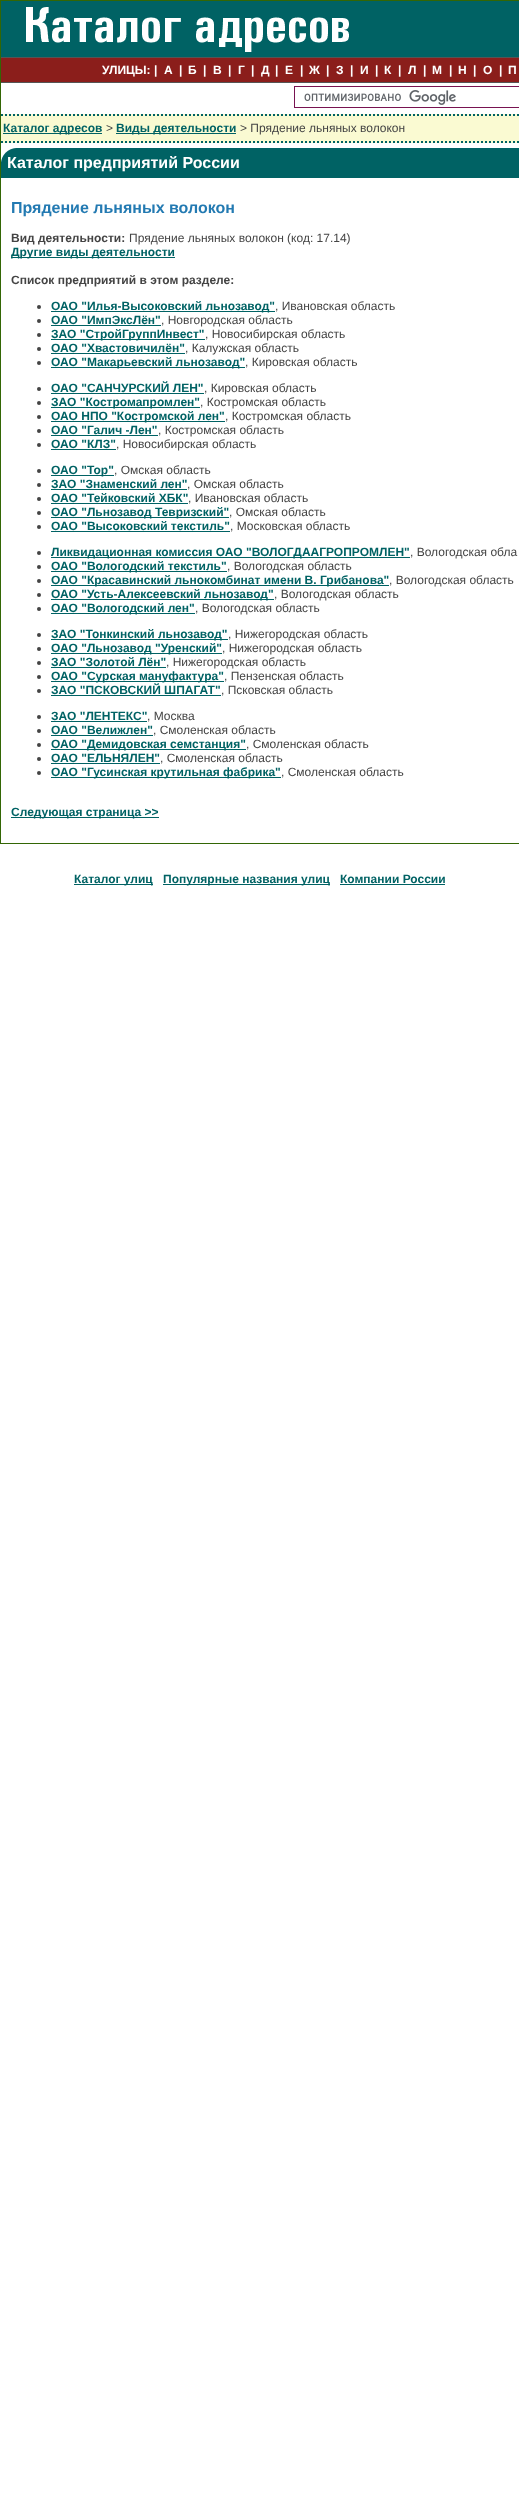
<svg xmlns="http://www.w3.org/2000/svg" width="519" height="2498">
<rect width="100%" height="100%" fill="#fff"/>
<rect x="0.5" y="0.5" width="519" height="843" fill="none" stroke="#336604"/>
<rect x="1" y="1" width="518" height="56" fill="#006264"/>
<image x="26" y="7" width="323" height="45" href="media/1.png"/>
<rect x="1" y="58" width="518" height="24" fill="#8b1e1b"/>
<rect x="1" y="57" width="518" height="1" fill="#555"/>
<rect x="1" y="82" width="518" height="1" fill="#555"/>
<text x="102" y="74" style="font-family:Liberation Sans;font-size:12px;font-weight:bold;fill:#fff">УЛИЦЫ: |</text>
<text x="164" y="74" style="font-family:Liberation Sans;font-size:12px;font-weight:bold;fill:#fff">А</text>
<text x="179" y="74" style="font-family:Liberation Sans;font-size:12px;font-weight:bold;fill:#fff">|</text>
<text x="188" y="74" style="font-family:Liberation Sans;font-size:12px;font-weight:bold;fill:#fff">Б</text>
<text x="203" y="74" style="font-family:Liberation Sans;font-size:12px;font-weight:bold;fill:#fff">|</text>
<text x="213" y="74" style="font-family:Liberation Sans;font-size:12px;font-weight:bold;fill:#fff">В</text>
<text x="228" y="74" style="font-family:Liberation Sans;font-size:12px;font-weight:bold;fill:#fff">|</text>
<text x="238" y="74" style="font-family:Liberation Sans;font-size:12px;font-weight:bold;fill:#fff">Г</text>
<text x="251" y="74" style="font-family:Liberation Sans;font-size:12px;font-weight:bold;fill:#fff">|</text>
<text x="261" y="74" style="font-family:Liberation Sans;font-size:12px;font-weight:bold;fill:#fff">Д</text>
<text x="275" y="74" style="font-family:Liberation Sans;font-size:12px;font-weight:bold;fill:#fff">|</text>
<text x="285" y="74" style="font-family:Liberation Sans;font-size:12px;font-weight:bold;fill:#fff">Е</text>
<text x="300" y="74" style="font-family:Liberation Sans;font-size:12px;font-weight:bold;fill:#fff">|</text>
<text x="309" y="74" style="font-family:Liberation Sans;font-size:12px;font-weight:bold;fill:#fff">Ж</text>
<text x="326" y="74" style="font-family:Liberation Sans;font-size:12px;font-weight:bold;fill:#fff">|</text>
<text x="336" y="74" style="font-family:Liberation Sans;font-size:12px;font-weight:bold;fill:#fff">З</text>
<text x="350" y="74" style="font-family:Liberation Sans;font-size:12px;font-weight:bold;fill:#fff">|</text>
<text x="360" y="74" style="font-family:Liberation Sans;font-size:12px;font-weight:bold;fill:#fff">И</text>
<text x="375" y="74" style="font-family:Liberation Sans;font-size:12px;font-weight:bold;fill:#fff">|</text>
<text x="384" y="74" style="font-family:Liberation Sans;font-size:12px;font-weight:bold;fill:#fff">К</text>
<text x="398" y="74" style="font-family:Liberation Sans;font-size:12px;font-weight:bold;fill:#fff">|</text>
<text x="408" y="74" style="font-family:Liberation Sans;font-size:12px;font-weight:bold;fill:#fff">Л</text>
<text x="423" y="74" style="font-family:Liberation Sans;font-size:12px;font-weight:bold;fill:#fff">|</text>
<text x="432" y="74" style="font-family:Liberation Sans;font-size:12px;font-weight:bold;fill:#fff">М</text>
<text x="449" y="74" style="font-family:Liberation Sans;font-size:12px;font-weight:bold;fill:#fff">|</text>
<text x="458" y="74" style="font-family:Liberation Sans;font-size:12px;font-weight:bold;fill:#fff">Н</text>
<text x="473" y="74" style="font-family:Liberation Sans;font-size:12px;font-weight:bold;fill:#fff">|</text>
<text x="483" y="74" style="font-family:Liberation Sans;font-size:12px;font-weight:bold;fill:#fff">О</text>
<text x="499" y="74" style="font-family:Liberation Sans;font-size:12px;font-weight:bold;fill:#fff">|</text>
<text x="508" y="74" style="font-family:Liberation Sans;font-size:12px;font-weight:bold;fill:#fff">П</text>
<image x="304" y="90" width="152" height="15" href="media/2.png"/>
<rect x="294.5" y="86.5" width="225" height="21" fill="none" stroke="#781351"/>
<rect x="1" y="114" width="518" height="29" fill="#fafad2"/>
<path d="M1 115h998" fill="none" stroke="#006264" stroke-width="2" stroke-dasharray="2 2"/>
<path d="M1 142h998" fill="none" stroke="#006264" stroke-width="2" stroke-dasharray="2 2"/>
<rect x="3" y="133" width="99" height="1" fill="#006264"/>
<text x="3" y="132" style="font-family:Liberation Sans;font-size:12px;font-weight:bold;fill:#006264">Каталог адресов</text>
<text x="106" y="132" style="font-family:Liberation Sans;font-size:12px;fill:#444">&gt;</text>
<rect x="116" y="133" width="120" height="1" fill="#006264"/>
<text x="116" y="132" style="font-family:Liberation Sans;font-size:12px;font-weight:bold;fill:#006264">Виды деятельности</text>
<text x="240" y="132" style="font-family:Liberation Sans;font-size:12px;fill:#444">&gt; Прядение льняных волокон</text>
<rect x="1" y="148" width="518" height="30" fill="#006264"/>
<image x="1" y="148" width="15" height="14" href="media/3.png"/>
<text x="7" y="168" style="font-family:Liberation Sans;font-size:16px;font-weight:bold;fill:#fff">Каталог предприятий России</text>
<text x="11" y="213" style="font-family:Liberation Sans;font-size:16px;font-weight:bold;fill:#237ab2">Прядение льняных волокон</text>
<text x="11" y="242" style="font-family:Liberation Sans;font-size:12px;font-weight:bold;fill:#444">Вид деятельности:</text>
<text x="129" y="242" style="font-family:Liberation Sans;font-size:12px;fill:#444">Прядение льняных волокон (код: 17.14)</text>
<rect x="11" y="257" width="164" height="1" fill="#006264"/>
<text x="11" y="256" style="font-family:Liberation Sans;font-size:12px;font-weight:bold;fill:#006264">Другие виды деятельности</text>
<text x="11" y="284" style="font-family:Liberation Sans;font-size:12px;font-weight:bold;fill:#444">Список предприятий в этом разделе:</text>
<circle cx="39" cy="307" r="2" fill="#444"/>
<rect x="51" y="311" width="224" height="1" fill="#006264"/>
<text x="51" y="310" style="font-family:Liberation Sans;font-size:12px;font-weight:bold;fill:#006264">ОАО "Илья-Высоковский льнозавод"</text>
<text x="275" y="310" style="font-family:Liberation Sans;font-size:12px;fill:#444">, Ивановская область</text>
<circle cx="39" cy="321" r="2" fill="#444"/>
<text x="51" y="324" style="font-family:Liberation Sans;font-size:12px;font-weight:bold;fill:#006264">ОАО "ИмпЭксЛён"</text>
<rect x="51" y="325" width="110" height="1" fill="#006264"/>
<text x="161" y="324" style="font-family:Liberation Sans;font-size:12px;fill:#444">, Новгородская область</text>
<circle cx="39" cy="335" r="2" fill="#444"/>
<rect x="51" y="339" width="154" height="1" fill="#006264"/>
<text x="51" y="338" style="font-family:Liberation Sans;font-size:12px;font-weight:bold;fill:#006264">ЗАО "СтройГруппИнвест"</text>
<text x="205" y="338" style="font-family:Liberation Sans;font-size:12px;fill:#444">, Новосибирская область</text>
<circle cx="39" cy="349" r="2" fill="#444"/>
<text x="51" y="352" style="font-family:Liberation Sans;font-size:12px;font-weight:bold;fill:#006264">ОАО "Хвастовичилён"</text>
<rect x="51" y="353" width="134" height="1" fill="#006264"/>
<text x="185" y="352" style="font-family:Liberation Sans;font-size:12px;fill:#444">, Калужская область</text>
<circle cx="39" cy="363" r="2" fill="#444"/>
<rect x="51" y="367" width="194" height="1" fill="#006264"/>
<text x="51" y="366" style="font-family:Liberation Sans;font-size:12px;font-weight:bold;fill:#006264">ОАО "Макарьевский льнозавод"</text>
<text x="245" y="366" style="font-family:Liberation Sans;font-size:12px;fill:#444">, Кировская область</text>
<circle cx="39" cy="389" r="2" fill="#444"/>
<text x="51" y="392" style="font-family:Liberation Sans;font-size:12px;font-weight:bold;fill:#006264">ОАО "САНЧУРСКИЙ ЛЕН"</text>
<rect x="51" y="393" width="153" height="1" fill="#006264"/>
<text x="204" y="392" style="font-family:Liberation Sans;font-size:12px;fill:#444">, Кировская область</text>
<circle cx="39" cy="403" r="2" fill="#444"/>
<rect x="51" y="407" width="149" height="1" fill="#006264"/>
<text x="51" y="406" style="font-family:Liberation Sans;font-size:12px;font-weight:bold;fill:#006264">ЗАО "Костромапромлен"</text>
<text x="200" y="406" style="font-family:Liberation Sans;font-size:12px;fill:#444">, Костромская область</text>
<circle cx="39" cy="417" r="2" fill="#444"/>
<rect x="51" y="421" width="174" height="1" fill="#006264"/>
<text x="51" y="420" style="font-family:Liberation Sans;font-size:12px;font-weight:bold;fill:#006264">ОАО НПО "Костромской лен"</text>
<text x="225" y="420" style="font-family:Liberation Sans;font-size:12px;fill:#444">, Костромская область</text>
<circle cx="39" cy="431" r="2" fill="#444"/>
<text x="51" y="434" style="font-family:Liberation Sans;font-size:12px;font-weight:bold;fill:#006264">ОАО "Галич -Лен"</text>
<rect x="51" y="435" width="107" height="1" fill="#006264"/>
<text x="158" y="434" style="font-family:Liberation Sans;font-size:12px;fill:#444">, Костромская область</text>
<circle cx="39" cy="445" r="2" fill="#444"/>
<text x="51" y="448" style="font-family:Liberation Sans;font-size:12px;font-weight:bold;fill:#006264">ОАО "КЛЗ"</text>
<rect x="51" y="449" width="65" height="1" fill="#006264"/>
<text x="116" y="448" style="font-family:Liberation Sans;font-size:12px;fill:#444">, Новосибирская область</text>
<circle cx="39" cy="471" r="2" fill="#444"/>
<rect x="51" y="475" width="63" height="1" fill="#006264"/>
<text x="51" y="474" style="font-family:Liberation Sans;font-size:12px;font-weight:bold;fill:#006264">ОАО "Тор"</text>
<text x="114" y="474" style="font-family:Liberation Sans;font-size:12px;fill:#444">, Омская область</text>
<circle cx="39" cy="485" r="2" fill="#444"/>
<text x="51" y="488" style="font-family:Liberation Sans;font-size:12px;font-weight:bold;fill:#006264">ЗАО "Знаменский лен"</text>
<rect x="51" y="489" width="136" height="1" fill="#006264"/>
<text x="187" y="488" style="font-family:Liberation Sans;font-size:12px;fill:#444">, Омская область</text>
<circle cx="39" cy="499" r="2" fill="#444"/>
<text x="51" y="502" style="font-family:Liberation Sans;font-size:12px;font-weight:bold;fill:#006264">ОАО "Тейковский ХБК"</text>
<rect x="51" y="503" width="137" height="1" fill="#006264"/>
<text x="188" y="502" style="font-family:Liberation Sans;font-size:12px;fill:#444">, Ивановская область</text>
<circle cx="39" cy="513" r="2" fill="#444"/>
<rect x="51" y="517" width="178" height="1" fill="#006264"/>
<text x="51" y="516" style="font-family:Liberation Sans;font-size:12px;font-weight:bold;fill:#006264">ОАО "Льнозавод Тевризский"</text>
<text x="229" y="516" style="font-family:Liberation Sans;font-size:12px;fill:#444">, Омская область</text>
<circle cx="39" cy="527" r="2" fill="#444"/>
<text x="51" y="530" style="font-family:Liberation Sans;font-size:12px;font-weight:bold;fill:#006264">ОАО "Высоковский текстиль"</text>
<rect x="51" y="531" width="179" height="1" fill="#006264"/>
<text x="230" y="530" style="font-family:Liberation Sans;font-size:12px;fill:#444">, Московская область</text>
<circle cx="39" cy="553" r="2" fill="#444"/>
<rect x="51" y="557" width="359" height="1" fill="#006264"/>
<text x="51" y="556" style="font-family:Liberation Sans;font-size:12px;font-weight:bold;fill:#006264">Ликвидационная комиссия ОАО "ВОЛОГДААГРОПРОМЛЕН"</text>
<text x="410" y="556" style="font-family:Liberation Sans;font-size:12px;fill:#444">, Вологодская обла</text>
<circle cx="39" cy="567" r="2" fill="#444"/>
<rect x="51" y="571" width="176" height="1" fill="#006264"/>
<text x="51" y="570" style="font-family:Liberation Sans;font-size:12px;font-weight:bold;fill:#006264">ОАО "Вологодский текстиль"</text>
<text x="227" y="570" style="font-family:Liberation Sans;font-size:12px;fill:#444">, Вологодская область</text>
<circle cx="39" cy="581" r="2" fill="#444"/>
<rect x="51" y="585" width="338" height="1" fill="#006264"/>
<text x="51" y="584" style="font-family:Liberation Sans;font-size:12px;font-weight:bold;fill:#006264">ОАО "Красавинский льнокомбинат имени В. Грибанова"</text>
<text x="389" y="584" style="font-family:Liberation Sans;font-size:12px;fill:#444">, Вологодская область</text>
<circle cx="39" cy="595" r="2" fill="#444"/>
<rect x="51" y="599" width="223" height="1" fill="#006264"/>
<text x="51" y="598" style="font-family:Liberation Sans;font-size:12px;font-weight:bold;fill:#006264">ОАО "Усть-Алексеевский льнозавод"</text>
<text x="274" y="598" style="font-family:Liberation Sans;font-size:12px;fill:#444">, Вологодская область</text>
<circle cx="39" cy="609" r="2" fill="#444"/>
<rect x="51" y="613" width="144" height="1" fill="#006264"/>
<text x="51" y="612" style="font-family:Liberation Sans;font-size:12px;font-weight:bold;fill:#006264">ОАО "Вологодский лен"</text>
<text x="195" y="612" style="font-family:Liberation Sans;font-size:12px;fill:#444">, Вологодская область</text>
<circle cx="39" cy="635" r="2" fill="#444"/>
<rect x="51" y="639" width="177" height="1" fill="#006264"/>
<text x="51" y="638" style="font-family:Liberation Sans;font-size:12px;font-weight:bold;fill:#006264">ЗАО "Тонкинский льнозавод"</text>
<text x="228" y="638" style="font-family:Liberation Sans;font-size:12px;fill:#444">, Нижегородская область</text>
<circle cx="39" cy="649" r="2" fill="#444"/>
<rect x="51" y="653" width="171" height="1" fill="#006264"/>
<text x="51" y="652" style="font-family:Liberation Sans;font-size:12px;font-weight:bold;fill:#006264">ОАО "Льнозавод "Уренский"</text>
<text x="222" y="652" style="font-family:Liberation Sans;font-size:12px;fill:#444">, Нижегородская область</text>
<circle cx="39" cy="663" r="2" fill="#444"/>
<text x="51" y="666" style="font-family:Liberation Sans;font-size:12px;font-weight:bold;fill:#006264">ЗАО "Золотой Лён"</text>
<rect x="51" y="667" width="115" height="1" fill="#006264"/>
<text x="166" y="666" style="font-family:Liberation Sans;font-size:12px;fill:#444">, Нижегородская область</text>
<circle cx="39" cy="677" r="2" fill="#444"/>
<rect x="51" y="681" width="173" height="1" fill="#006264"/>
<text x="51" y="680" style="font-family:Liberation Sans;font-size:12px;font-weight:bold;fill:#006264">ОАО "Сурская мануфактура"</text>
<text x="224" y="680" style="font-family:Liberation Sans;font-size:12px;fill:#444">, Пензенская область</text>
<circle cx="39" cy="691" r="2" fill="#444"/>
<text x="51" y="694" style="font-family:Liberation Sans;font-size:12px;font-weight:bold;fill:#006264">ЗАО "ПСКОВСКИЙ ШПАГАТ"</text>
<rect x="51" y="695" width="170" height="1" fill="#006264"/>
<text x="221" y="694" style="font-family:Liberation Sans;font-size:12px;fill:#444">, Псковская область</text>
<circle cx="39" cy="717" r="2" fill="#444"/>
<text x="51" y="720" style="font-family:Liberation Sans;font-size:12px;font-weight:bold;fill:#006264">ЗАО "ЛЕНТЕКС"</text>
<rect x="51" y="721" width="96" height="1" fill="#006264"/>
<text x="147" y="720" style="font-family:Liberation Sans;font-size:12px;fill:#444">, Москва</text>
<circle cx="39" cy="731" r="2" fill="#444"/>
<text x="51" y="734" style="font-family:Liberation Sans;font-size:12px;font-weight:bold;fill:#006264">ОАО "Велижлен"</text>
<rect x="51" y="735" width="102" height="1" fill="#006264"/>
<text x="153" y="734" style="font-family:Liberation Sans;font-size:12px;fill:#444">, Смоленская область</text>
<circle cx="39" cy="745" r="2" fill="#444"/>
<rect x="51" y="749" width="195" height="1" fill="#006264"/>
<text x="51" y="748" style="font-family:Liberation Sans;font-size:12px;font-weight:bold;fill:#006264">ОАО "Демидовская семстанция"</text>
<text x="246" y="748" style="font-family:Liberation Sans;font-size:12px;fill:#444">, Смоленская область</text>
<circle cx="39" cy="759" r="2" fill="#444"/>
<text x="51" y="762" style="font-family:Liberation Sans;font-size:12px;font-weight:bold;fill:#006264">ОАО "ЕЛЬНЯЛЕН"</text>
<rect x="51" y="763" width="109" height="1" fill="#006264"/>
<text x="160" y="762" style="font-family:Liberation Sans;font-size:12px;fill:#444">, Смоленская область</text>
<circle cx="39" cy="773" r="2" fill="#444"/>
<rect x="51" y="777" width="230" height="1" fill="#006264"/>
<text x="51" y="776" style="font-family:Liberation Sans;font-size:12px;font-weight:bold;fill:#006264">ОАО "Гусинская крутильная фабрика"</text>
<text x="281" y="776" style="font-family:Liberation Sans;font-size:12px;fill:#444">, Смоленская область</text>
<rect x="11" y="817" width="148" height="1" fill="#006264"/>
<text x="11" y="816" style="font-family:Liberation Sans;font-size:12px;font-weight:bold;fill:#006264">Следующая страница &gt;&gt;</text>
<rect x="74" y="884" width="79" height="1" fill="#006264"/>
<text x="74" y="883" style="font-family:Liberation Sans;font-size:12px;font-weight:bold;fill:#006264">Каталог улиц</text>
<rect x="163" y="884" width="167" height="1" fill="#006264"/>
<text x="163" y="883" style="font-family:Liberation Sans;font-size:12px;font-weight:bold;fill:#006264">Популярные названия улиц</text>
<text x="340" y="883" style="font-family:Liberation Sans;font-size:12px;font-weight:bold;fill:#006264">Компании России</text>
<rect x="340" y="884" width="105" height="1" fill="#006264"/>
</svg>
